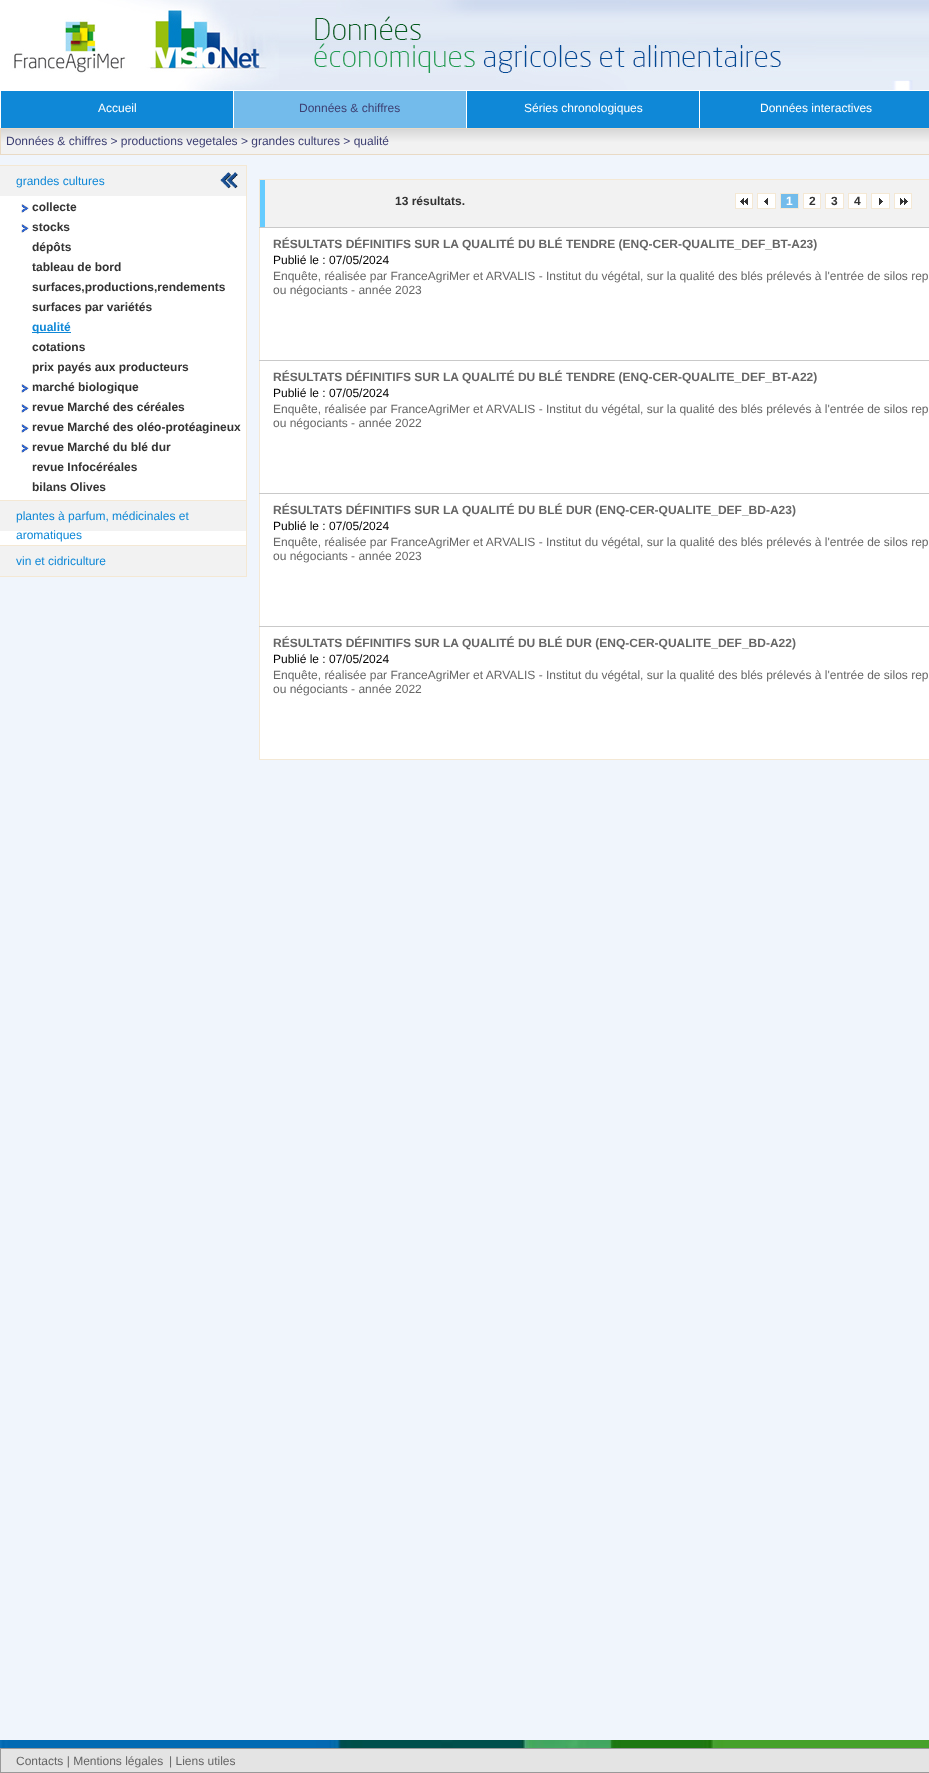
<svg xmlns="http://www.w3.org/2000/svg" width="929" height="1773">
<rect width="100%" height="100%" fill="#f0f5fc"/>
<image x="0" y="0" width="929" height="90" href="media/1.png"/>
<rect x="1" y="91" width="928" height="37" fill="#0f88d7"/>
<rect y="90" width="929" height="1" fill="#fff"/>
<rect y="90" width="1" height="38" fill="#fff"/>
<text x="98" y="112" style="font-family:Liberation Sans;font-size:12px;fill:#fff">Accueil</text>
<rect x="234" y="91" width="232" height="37" fill="#73bbeb"/>
<rect x="233" y="90" width="1" height="38" fill="#fff"/>
<text x="299" y="112" style="font-family:Liberation Sans;font-size:12px;fill:#3e4073">Données &amp; chiffres</text>
<rect x="466" y="90" width="1" height="38" fill="#fff"/>
<text x="524" y="112" style="font-family:Liberation Sans;font-size:12px;fill:#fff">Séries chronologiques</text>
<rect x="699" y="90" width="1" height="38" fill="#fff"/>
<text x="760" y="112" style="font-family:Liberation Sans;font-size:12px;fill:#fff">Données interactives</text>
<image x="1" y="129" width="928" height="25" href="media/2.png"/>
<rect x="0.5" y="128.5" width="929" height="26" fill="none" stroke="#e9dac5"/>
<text x="6" y="145" style="font-family:Liberation Sans;font-size:12px;fill:#3e4073">Données &amp; chiffres &gt; productions vegetales &gt; grandes cultures &gt; qualité</text>
<rect x="246" y="165" width="1" height="412" fill="#f4e8d4"/>
<rect y="576" width="247" height="1" fill="#f4e8d4"/>
<rect y="166" width="246" height="30" fill="#f2f2f2"/>
<image x="220" y="172" width="18" height="17" href="media/3.png"/>
<rect y="196" width="246" height="349" fill="#fff"/>
<rect y="165" width="246" height="1" fill="#f4e8d4"/>
<text x="16" y="185" style="font-family:Liberation Sans;font-size:12px;fill:#0f88d7">grandes cultures</text>
<image x="21" y="204" width="8" height="9" href="media/4.png"/>
<text x="32" y="211" style="font-family:Liberation Sans;font-size:12px;font-weight:bold;fill:#333">collecte</text>
<image x="21" y="224" width="8" height="9" href="media/4.png"/>
<text x="32" y="231" style="font-family:Liberation Sans;font-size:12px;font-weight:bold;fill:#333">stocks</text>
<text x="32" y="251" style="font-family:Liberation Sans;font-size:12px;font-weight:bold;fill:#333">dépôts</text>
<text x="32" y="271" style="font-family:Liberation Sans;font-size:12px;font-weight:bold;fill:#333">tableau de bord</text>
<text x="32" y="291" style="font-family:Liberation Sans;font-size:12px;font-weight:bold;fill:#333">surfaces,productions,rendements</text>
<text x="32" y="311" style="font-family:Liberation Sans;font-size:12px;font-weight:bold;fill:#333">surfaces par variétés</text>
<rect x="32" y="332" width="39" height="1" fill="#0f88d7"/>
<text x="32" y="331" style="font-family:Liberation Sans;font-size:12px;font-weight:bold;fill:#0f88d7">qualité</text>
<text x="32" y="351" style="font-family:Liberation Sans;font-size:12px;font-weight:bold;fill:#333">cotations</text>
<text x="32" y="371" style="font-family:Liberation Sans;font-size:12px;font-weight:bold;fill:#333">prix payés aux producteurs</text>
<image x="21" y="384" width="8" height="9" href="media/4.png"/>
<text x="32" y="391" style="font-family:Liberation Sans;font-size:12px;font-weight:bold;fill:#333">marché biologique</text>
<image x="21" y="404" width="8" height="9" href="media/4.png"/>
<text x="32" y="411" style="font-family:Liberation Sans;font-size:12px;font-weight:bold;fill:#333">revue Marché des céréales</text>
<image x="21" y="424" width="8" height="9" href="media/4.png"/>
<text x="32" y="431" style="font-family:Liberation Sans;font-size:12px;font-weight:bold;fill:#333">revue Marché des oléo-protéagineux</text>
<image x="21" y="444" width="8" height="9" href="media/4.png"/>
<text x="32" y="451" style="font-family:Liberation Sans;font-size:12px;font-weight:bold;fill:#333">revue Marché du blé dur</text>
<text x="32" y="471" style="font-family:Liberation Sans;font-size:12px;font-weight:bold;fill:#333">revue Infocéréales</text>
<text x="32" y="491" style="font-family:Liberation Sans;font-size:12px;font-weight:bold;fill:#333">bilans Olives</text>
<rect y="501" width="246" height="30" fill="#f2f2f2"/>
<rect y="500" width="246" height="1" fill="#f4e8d4"/>
<text x="16" y="520" style="font-family:Liberation Sans;font-size:12px;fill:#0f88d7">plantes à parfum, médicinales et</text>
<text x="16" y="539" style="font-family:Liberation Sans;font-size:12px;fill:#0f88d7">aromatiques</text>
<rect y="546" width="246" height="30" fill="#f2f2f2"/>
<rect y="545" width="246" height="1" fill="#f4e8d4"/>
<text x="16" y="565" style="font-family:Liberation Sans;font-size:12px;fill:#0f88d7">vin et cidriculture</text>
<rect x="259" y="179" width="670" height="1" fill="#f4e8d4"/>
<rect x="259" y="759" width="670" height="1" fill="#f4e8d4"/>
<rect x="259" y="179" width="1" height="581" fill="#f4e8d4"/>
<rect x="265" y="180" width="664" height="47" fill="#f2f2f2"/>
<rect x="260" y="180" width="5" height="47" fill="#6cf"/>
<text x="395" y="205" style="font-family:Liberation Sans;font-size:12px;font-weight:bold;fill:#333">13 résultats.</text>
<rect x="740" y="198" width="8" height="7" fill="#333"/>
<image x="736" y="194" width="16" height="14" href="media/5.png"/>
<rect x="735.5" y="193.5" width="17" height="15" fill="none" stroke="#f4e8d4"/>
<rect x="764" y="198" width="4" height="7" fill="#333"/>
<image x="758" y="194" width="17" height="14" href="media/6.png"/>
<rect x="757.5" y="193.5" width="18" height="15" fill="none" stroke="#f4e8d4"/>
<rect x="879" y="198" width="4" height="7" fill="#333"/>
<image x="872" y="194" width="17" height="14" href="media/7.png"/>
<rect x="871.5" y="193.5" width="18" height="15" fill="none" stroke="#f4e8d4"/>
<rect x="900" y="198" width="8" height="7" fill="#333"/>
<image x="895" y="194" width="16" height="14" href="media/8.png"/>
<rect x="894.5" y="193.5" width="17" height="15" fill="none" stroke="#f4e8d4"/>
<rect x="780.5" y="193.5" width="18" height="15" fill="#73bceb" stroke="#f4e8d4"/>
<text x="786" y="205" style="font-family:Liberation Sans;font-size:12px;font-weight:bold;fill:#fff">1</text>
<rect x="803.5" y="193.5" width="17" height="15" fill="#fff" stroke="#f4e8d4"/>
<text x="809" y="205" style="font-family:Liberation Sans;font-size:12px;font-weight:bold;fill:#333">2</text>
<rect x="825.5" y="193.5" width="18" height="15" fill="#fff" stroke="#f4e8d4"/>
<text x="831" y="205" style="font-family:Liberation Sans;font-size:12px;font-weight:bold;fill:#333">3</text>
<rect x="848.5" y="193.5" width="18" height="15" fill="#fff" stroke="#f4e8d4"/>
<text x="854" y="205" style="font-family:Liberation Sans;font-size:12px;font-weight:bold;fill:#333">4</text>
<rect x="260" y="228" width="669" height="132" fill="#fff"/>
<rect x="259" y="227" width="670" height="1" fill="#c9c9c9"/>
<text x="273" y="248" style="font-family:Liberation Sans;font-size:12px;font-weight:bold;fill:#666">RÉSULTATS DÉFINITIFS SUR LA QUALITÉ DU BLÉ TENDRE (ENQ-CER-QUALITE_DEF_BT-A23)</text>
<text x="273" y="264" style="font-family:Liberation Sans;font-size:12px;fill:#000">Publié le : 07/05/2024</text>
<text x="273" y="280" style="font-family:Liberation Sans;font-size:12px;fill:#666">Enquête, réalisée par FranceAgriMer et ARVALIS - Institut du végétal, sur la qualité des blés prélevés à l'entrée de silos rep</text>
<text x="273" y="294" style="font-family:Liberation Sans;font-size:12px;fill:#666">ou négociants - année 2023</text>
<rect x="260" y="361" width="669" height="132" fill="#fff"/>
<rect x="259" y="360" width="670" height="1" fill="#c9c9c9"/>
<text x="273" y="381" style="font-family:Liberation Sans;font-size:12px;font-weight:bold;fill:#666">RÉSULTATS DÉFINITIFS SUR LA QUALITÉ DU BLÉ TENDRE (ENQ-CER-QUALITE_DEF_BT-A22)</text>
<text x="273" y="397" style="font-family:Liberation Sans;font-size:12px;fill:#000">Publié le : 07/05/2024</text>
<text x="273" y="413" style="font-family:Liberation Sans;font-size:12px;fill:#666">Enquête, réalisée par FranceAgriMer et ARVALIS - Institut du végétal, sur la qualité des blés prélevés à l'entrée de silos rep</text>
<text x="273" y="427" style="font-family:Liberation Sans;font-size:12px;fill:#666">ou négociants - année 2022</text>
<rect x="260" y="494" width="669" height="132" fill="#fff"/>
<rect x="259" y="493" width="670" height="1" fill="#c9c9c9"/>
<text x="273" y="514" style="font-family:Liberation Sans;font-size:12px;font-weight:bold;fill:#666">RÉSULTATS DÉFINITIFS SUR LA QUALITÉ DU BLÉ DUR (ENQ-CER-QUALITE_DEF_BD-A23)</text>
<text x="273" y="530" style="font-family:Liberation Sans;font-size:12px;fill:#000">Publié le : 07/05/2024</text>
<text x="273" y="546" style="font-family:Liberation Sans;font-size:12px;fill:#666">Enquête, réalisée par FranceAgriMer et ARVALIS - Institut du végétal, sur la qualité des blés prélevés à l'entrée de silos rep</text>
<text x="273" y="560" style="font-family:Liberation Sans;font-size:12px;fill:#666">ou négociants - année 2023</text>
<rect x="260" y="627" width="669" height="132" fill="#fff"/>
<rect x="259" y="626" width="670" height="1" fill="#c9c9c9"/>
<text x="273" y="647" style="font-family:Liberation Sans;font-size:12px;font-weight:bold;fill:#666">RÉSULTATS DÉFINITIFS SUR LA QUALITÉ DU BLÉ DUR (ENQ-CER-QUALITE_DEF_BD-A22)</text>
<text x="273" y="663" style="font-family:Liberation Sans;font-size:12px;fill:#000">Publié le : 07/05/2024</text>
<text x="273" y="679" style="font-family:Liberation Sans;font-size:12px;fill:#666">Enquête, réalisée par FranceAgriMer et ARVALIS - Institut du végétal, sur la qualité des blés prélevés à l'entrée de silos rep</text>
<text x="273" y="693" style="font-family:Liberation Sans;font-size:12px;fill:#666">ou négociants - année 2022</text>
<image x="0" y="1740" width="929" height="8" href="media/9.png"/>
<rect x="0.5" y="1748.5" width="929" height="24" fill="#e4e4e4" stroke="#999"/>
<text x="16" y="1765" style="font-family:Liberation Sans;font-size:12px;fill:#666">Contacts | Mentions légales</text>
<text x="169" y="1765" style="font-family:Liberation Sans;font-size:12px;fill:#666">| Liens utiles</text>
</svg>
